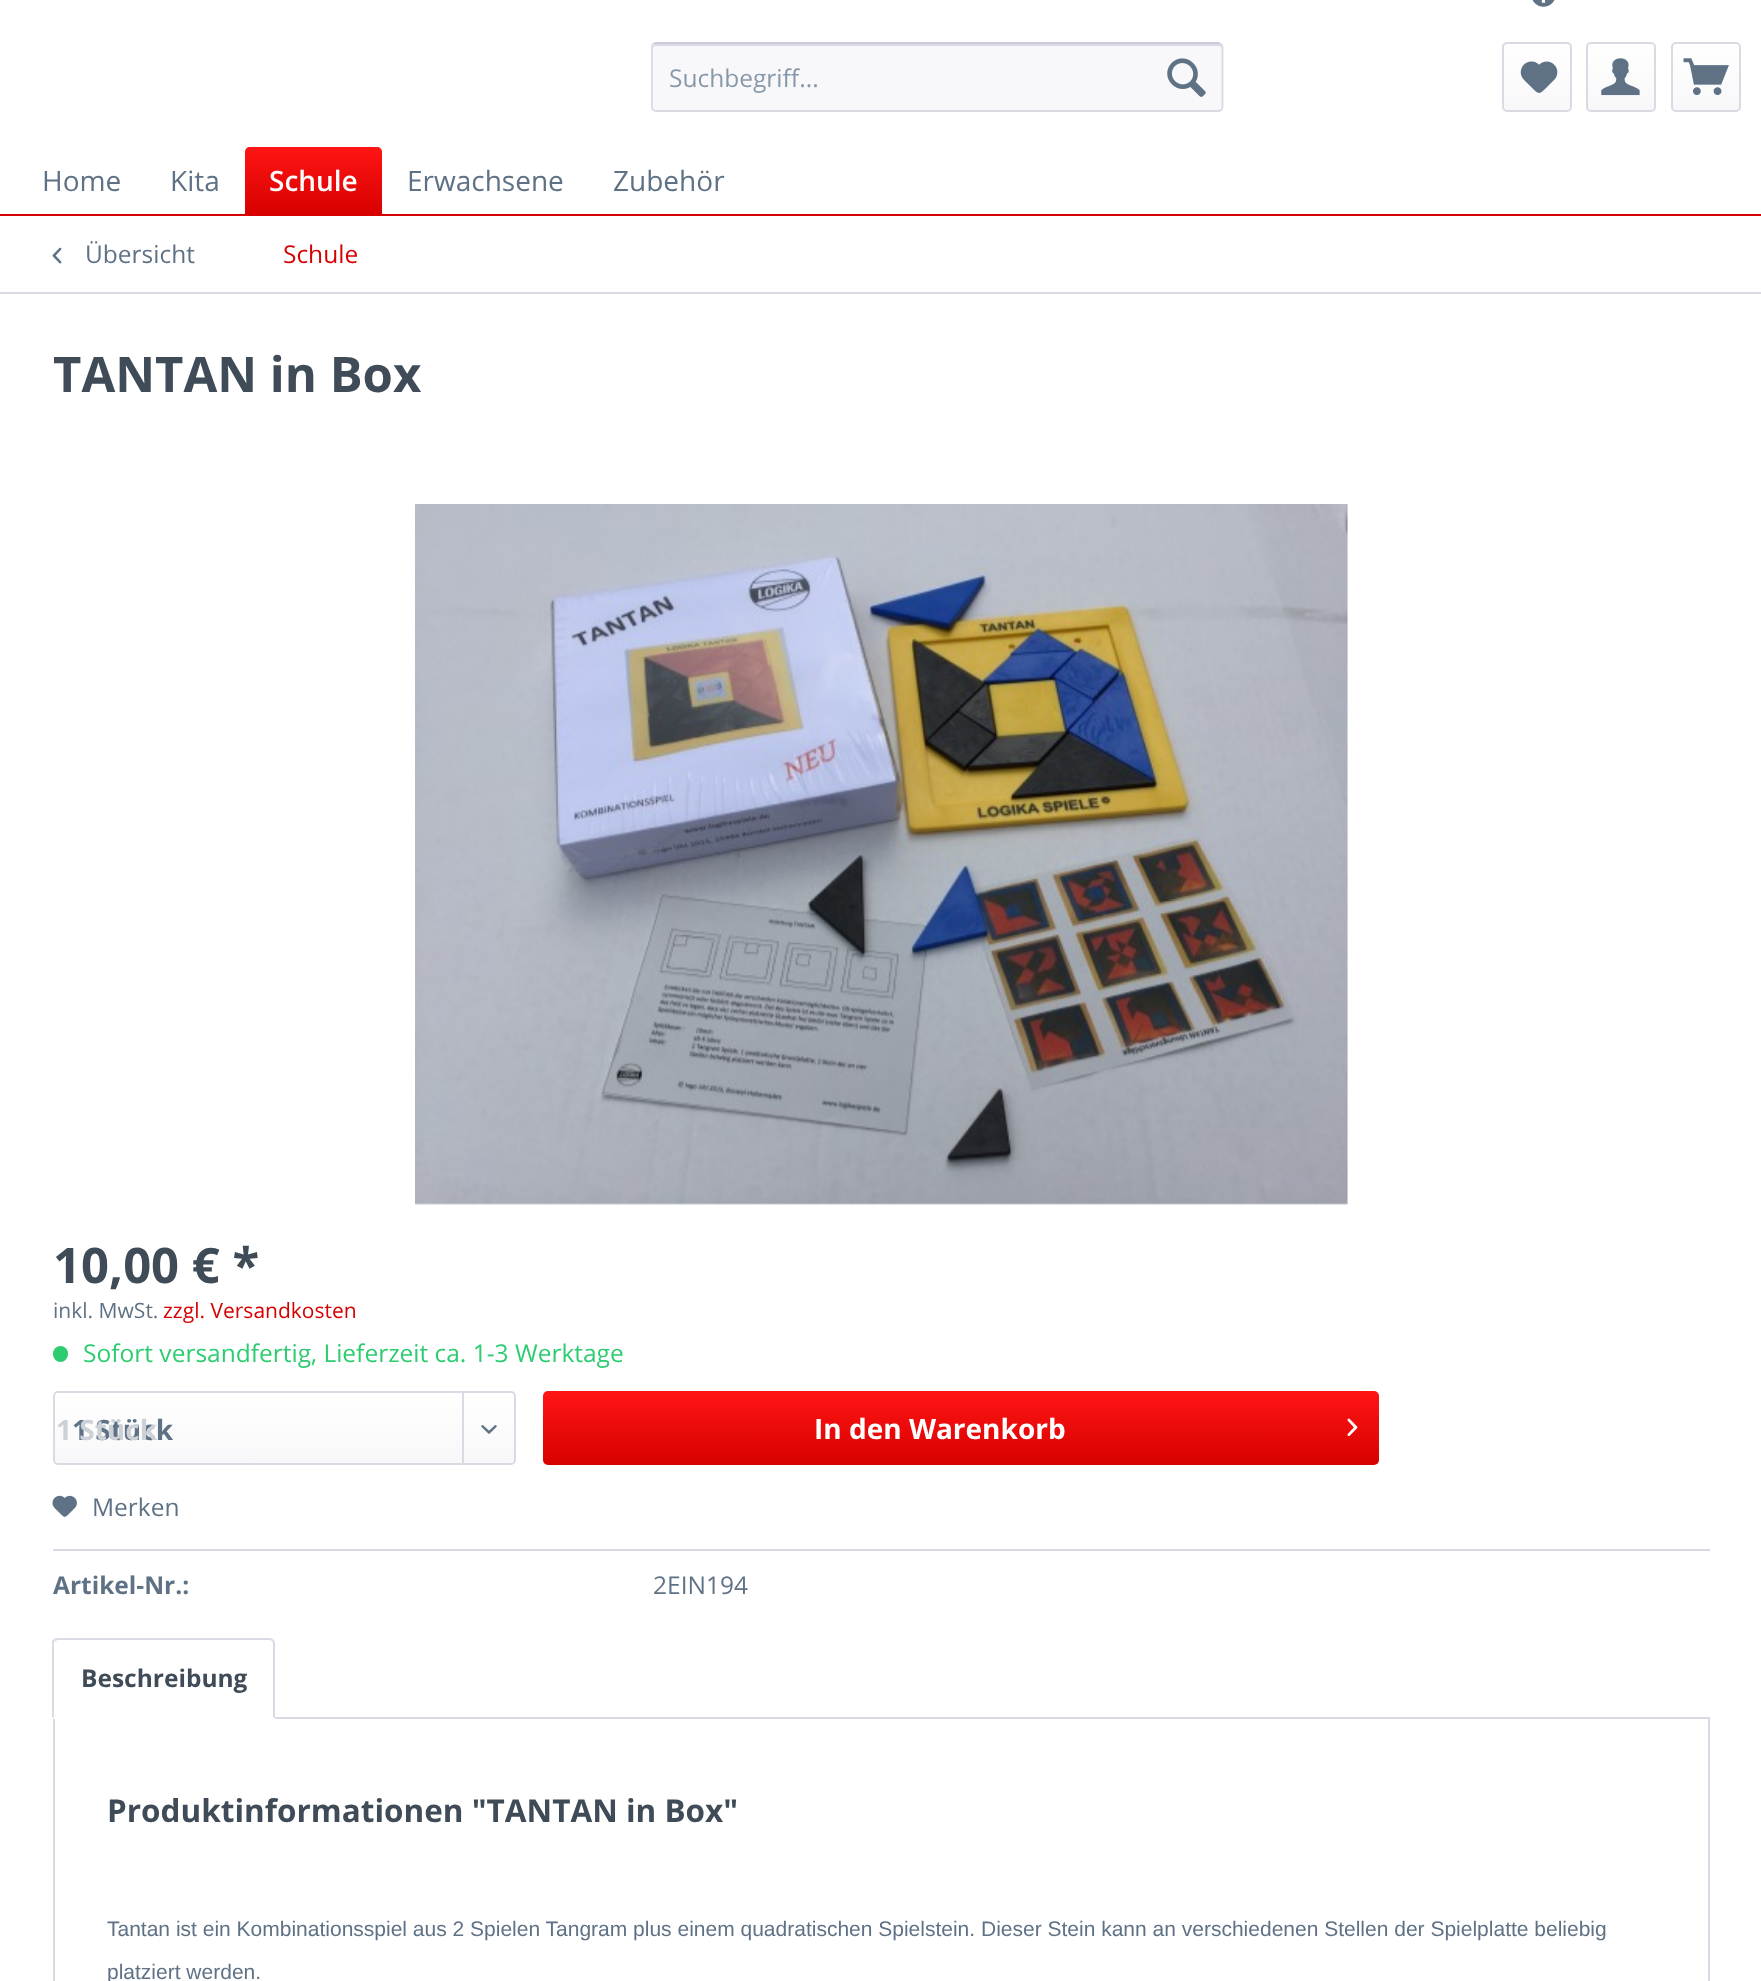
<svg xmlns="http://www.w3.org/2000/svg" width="1761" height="1981">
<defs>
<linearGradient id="g1" gradientUnits="userSpaceOnUse" x1="1537" y1="44" x2="1537" y2="110"><stop offset="0" stop-color="#fff"/><stop offset="1" stop-color="#f8f8fa"/></linearGradient>
<linearGradient id="g2" gradientUnits="userSpaceOnUse" x1="1621" y1="44" x2="1621" y2="110"><stop offset="0" stop-color="#fff"/><stop offset="1" stop-color="#f8f8fa"/></linearGradient>
<linearGradient id="g3" gradientUnits="userSpaceOnUse" x1="1706" y1="44" x2="1706" y2="110"><stop offset="0" stop-color="#fff"/><stop offset="1" stop-color="#f8f8fa"/></linearGradient>
<linearGradient id="g4" gradientUnits="userSpaceOnUse" x1="313" y1="147" x2="313" y2="214"><stop offset="0" stop-color="#ff1514"/><stop offset="1" stop-color="#d60100"/></linearGradient>
<linearGradient id="g5" gradientUnits="userSpaceOnUse" x1="284" y1="1393" x2="284" y2="1463"><stop offset="0" stop-color="#fff"/><stop offset="1" stop-color="#f8f8fa"/></linearGradient>
<linearGradient id="g6" gradientUnits="userSpaceOnUse" x1="961" y1="1391" x2="961" y2="1465"><stop offset="0" stop-color="#ff1514"/><stop offset="1" stop-color="#d60100"/></linearGradient>
</defs>
<rect width="100%" height="100%" fill="#fff"/>
<image x="1532" y="0" width="23" height="7" href="media/1.png"/>
<rect x="651" y="42" width="572" height="70" rx="5" fill="#f8f8fa"/>
<path d="M656 46h562c2 0 4 1 4 3c0-3-1-5-4-5h-561c-3 0-4 2-4 5c0-2 1-3 3-3z" fill="#dadae5"/>
<path d="M653 44l3-1h562l3 1" fill="none" stroke="#cbcbdb" stroke-width="1.8"/>
<path d="M1221 44c1 1 1.5 2 1.5 3v60c0 1-.5 2-1.5 3c-.5 .5-2 1-3 1h-562c-1 0-2-.5-3-1c-.5-1-1-2-1-3v-60c0-1 .5-2 1-3" fill="none" stroke="#dadae5" stroke-width="1.8"/>
<text x="669" y="87" style="font-family:Open Sans;font-size:24.5px;fill:#8798a9">Suchbegriff...</text>
<image x="1167" y="58" width="39" height="39" href="media/2.png"/>
<rect x="1503" y="44" width="67" height="66" rx="4" fill="url(#g1)"/>
<rect x="1503" y="43" width="68" height="68" rx="4" fill="none" stroke="#dadae5" stroke-width="2"/>
<image x="1520" y="61" width="38" height="32" href="media/3.png"/>
<rect x="1587" y="44" width="67" height="66" rx="4" fill="url(#g2)"/>
<rect x="1587" y="43" width="68" height="68" rx="4" fill="none" stroke="#dadae5" stroke-width="2"/>
<image x="1601" y="58" width="39" height="38" href="media/4.png"/>
<rect x="1673" y="44" width="67" height="66" rx="4" fill="url(#g3)"/>
<rect x="1672" y="43" width="68" height="68" rx="4" fill="none" stroke="#dadae5" stroke-width="2"/>
<image x="1683" y="58" width="46" height="37" href="media/5.png"/>
<rect y="214" width="1761" height="2" fill="#d60100"/>
<text x="42" y="191" style="font-family:Open Sans;font-size:28px;fill:#5f7285">Home</text>
<text x="170" y="191" style="font-family:Open Sans;font-size:28px;fill:#5f7285">Kita</text>
<path d="M250 147h127c3 0 5 2 5 5v62h-137v-62c0-3 2-5 5-5z" fill="url(#g4)"/>
<text x="269" y="191" style="font-family:Open Sans;font-size:28px;font-weight:600;fill:#fff">Schule</text>
<text x="407" y="191" style="font-family:Open Sans;font-size:28px;fill:#5f7285">Erwachsene</text>
<text x="613" y="191" style="font-family:Open Sans;font-size:28px;fill:#5f7285">Zubehör</text>
<rect y="292" width="1761" height="2" fill="#dadae5"/>
<image x="52" y="247" width="10" height="17" href="media/6.png"/>
<text x="85" y="263" style="font-family:Open Sans;font-size:24.5px;fill:#5f7285">Übersicht</text>
<text x="283" y="263" style="font-family:Open Sans;font-size:24.5px;fill:#d60100">Schule</text>
<text x="53" y="392" style="font-family:Open Sans;font-size:49px;font-weight:bold;fill:#3f4c58">TANTAN in Box</text>
<image x="415" y="504" width="933" height="701" href="media/7.png"/>
<text x="53" y="1283" style="font-family:Open Sans;font-size:49px;font-weight:bold;fill:#3f4c58">10,00 € *</text>
<text x="53" y="1318" style="font-family:Open Sans;font-size:21px;fill:#5f7285">inkl. MwSt.</text>
<text x="163" y="1318" style="font-family:Open Sans;font-size:21px;fill:#d60100">zzgl. Versandkosten</text>
<rect x="53" y="1346" width="15" height="16" rx="7.5" fill="#2ecc71"/>
<text x="83" y="1362" style="font-family:Open Sans;font-size:24.5px;fill:#2ecc71">Sofort versandfertig, Lieferzeit ca. 1-3 Werktage</text>
<rect x="54" y="1393" width="461" height="70" rx="4" fill="url(#g5)"/>
<rect x="54" y="1392" width="461" height="72" rx="4" fill="none" stroke="#dadae5" stroke-width="2"/>
<text x="72" y="1440" style="font-family:Open Sans;font-size:28px;font-weight:bold;fill:#5f7285">1 Stück</text>
<text x="56" y="1440" style="font-family:Open Sans;font-size:28px;font-weight:bold;fill:#cbd1d7">1 Stück</text>
<rect x="462" y="1393" width="2" height="70" fill="#dadae5"/>
<image x="481" y="1425" width="16" height="9" href="media/8.png"/>
<rect x="543" y="1391" width="836" height="74" rx="5" fill="url(#g6)"/>
<text x="814" y="1439" style="font-family:Open Sans;font-size:28px;font-weight:bold;fill:#fff">In den Warenkorb</text>
<image x="1347" y="1418" width="11" height="19" href="media/9.png"/>
<rect x="53" y="1549" width="1657" height="2" fill="#dadae5"/>
<image x="52" y="1495" width="25" height="22" href="media/10.png"/>
<text x="92" y="1516" style="font-family:Open Sans;font-size:24.5px;fill:#5f7285">Merken</text>
<text x="53" y="1594" style="font-family:Open Sans;font-size:24.5px;font-weight:bold;fill:#5f7285">Artikel-Nr.:</text>
<text x="653" y="1594" style="font-family:Open Sans;font-size:24.5px;fill:#5f7285">2EIN194</text>
<rect x="54" y="1718" width="1655" height="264" fill="none" stroke="#dadae5" stroke-width="2"/>
<path d="M58 1638h212c3 0 5 2 5 5v76h-222v-76c0-3 2-5 5-5z" fill="#fff"/>
<path d="M58 1638c-2 0-3 0-4 1l1 2l3-1h212l2 1l1-2l-3-1z" fill="#dadae5"/>
<path d="M275 1718l-2-1v-74l-1-2l1-2l2 3z" fill="#dadae5"/>
<path d="M274 1718h-221l1-1h219z" fill="#fff"/>
<path d="M52 1641l2-2l1 2l-1 2v74l-1 1h-1z" fill="#dadae5"/>
<text x="81" y="1687" style="font-family:Open Sans;font-size:24.5px;font-weight:bold;fill:#3f4c58">Beschreibung</text>
<text x="107" y="1822" style="font-family:Open Sans;font-size:31.5px;font-weight:bold;fill:#3f4c58">Produktinformationen "TANTAN in Box"</text>
<text x="107" y="1936" style="font-family:Liberation Sans;font-size:21px;fill:#5f7285">Tantan ist ein Kombinationsspiel aus 2 Spielen Tangram plus einem quadratischen Spielstein. Dieser Stein kann an verschiedenen Stellen der Spielplatte beliebig</text>
<text x="107" y="1979" style="font-family:Liberation Sans;font-size:21px;fill:#5f7285">platziert werden.</text>
</svg>
